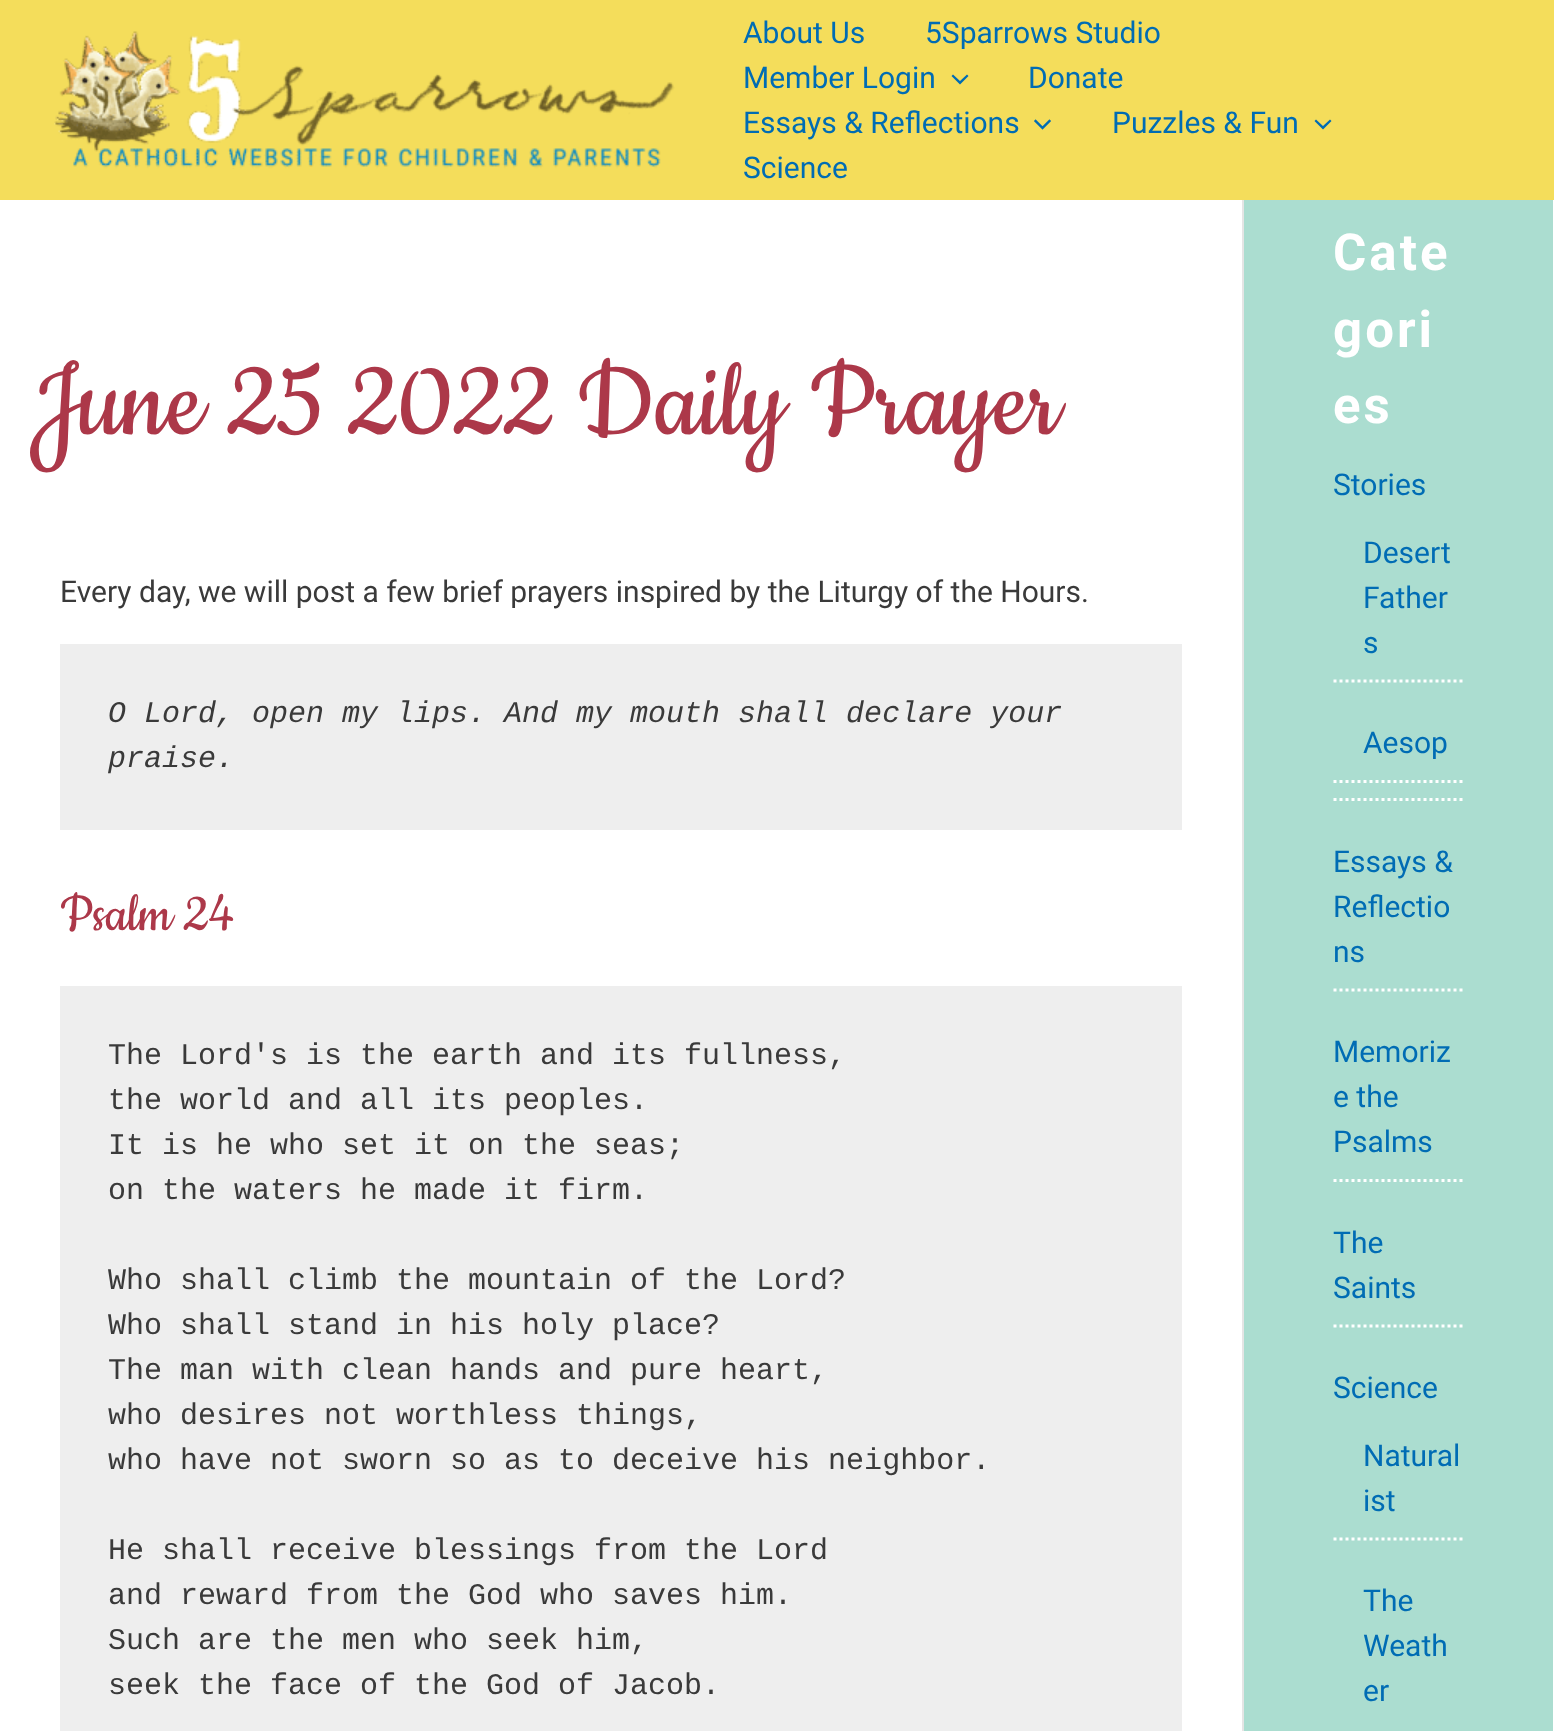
<svg xmlns="http://www.w3.org/2000/svg" width="1554" height="1731">
<rect width="100%" height="100%" fill="#fff"/>
<rect width="1554" height="200" fill="#f4dd5b"/>
<image x="54" y="31" width="621" height="138" href="media/1.png"/>
<text x="743" y="43" style="font-family:Roboto;font-size:30px;fill:#006cb4">About Us</text>
<text x="925" y="43" style="font-family:Roboto;font-size:30px;fill:#006cb4">5Sparrows Studio</text>
<text x="743" y="88" style="font-family:Roboto;font-size:30px;fill:#006cb4">Member Login</text>
<path d="M951.5 76l8.5 8.5l8.5-8.5l-1.5-1.5l-7 6.5l-7-6.5z" fill="#006cb4"/>
<text x="1028" y="88" style="font-family:Roboto;font-size:30px;fill:#006cb4">Donate</text>
<text x="743" y="133" style="font-family:Roboto;font-size:30px;fill:#006cb4">Essays &amp; Reflections</text>
<image x="1034" y="119" width="17" height="11" href="media/2.png"/>
<text x="1112" y="133" style="font-family:Roboto;font-size:30px;fill:#006cb4">Puzzles &amp; Fun</text>
<path d="M1314.5 121l8.5 8.5l8.5-8.5l-1.5-1.5l-7 6.5l-7-6.5z" fill="#006cb4"/>
<text x="743" y="178" style="font-family:Roboto;font-size:30px;fill:#006cb4">Science</text>
<text x="30" y="434" style="font-family:Cookie;font-size:120px;fill:#ac3849">June 25 2022 Daily Prayer</text>
<text x="60" y="602" style="font-family:Roboto;font-size:30px;fill:#3a3a3a">Every day, we will post a few brief prayers inspired by the Liturgy of the Hours.</text>
<rect x="60" y="644" width="1122" height="186" fill="#eee"/>
<text x="108" y="722" style="font-family:Liberation Mono;font-size:30px;font-style:italic;fill:#3a3a3a">O Lord, open my lips. And my mouth shall declare your</text>
<text x="108" y="767" style="font-family:Liberation Mono;font-size:30px;font-style:italic;fill:#3a3a3a">praise.</text>
<text x="60" y="930" style="font-family:Cookie;font-size:60px;fill:#ac3849">Psalm 24</text>
<rect x="60" y="986" width="1122" height="745" fill="#eee"/>
<text x="108" y="1064" style="font-family:Liberation Mono;font-size:30px;fill:#3a3a3a">The Lord's is the earth and its fullness,</text>
<text x="108" y="1109" style="font-family:Liberation Mono;font-size:30px;fill:#3a3a3a">the world and all its peoples.</text>
<text x="108" y="1154" style="font-family:Liberation Mono;font-size:30px;fill:#3a3a3a">It is he who set it on the seas;</text>
<text x="108" y="1199" style="font-family:Liberation Mono;font-size:30px;fill:#3a3a3a">on the waters he made it firm.</text>
<text x="108" y="1289" style="font-family:Liberation Mono;font-size:30px;fill:#3a3a3a">Who shall climb the mountain of the Lord?</text>
<text x="108" y="1334" style="font-family:Liberation Mono;font-size:30px;fill:#3a3a3a">Who shall stand in his holy place?</text>
<text x="108" y="1379" style="font-family:Liberation Mono;font-size:30px;fill:#3a3a3a">The man with clean hands and pure heart,</text>
<text x="108" y="1424" style="font-family:Liberation Mono;font-size:30px;fill:#3a3a3a">who desires not worthless things,</text>
<text x="108" y="1469" style="font-family:Liberation Mono;font-size:30px;fill:#3a3a3a">who have not sworn so as to deceive his neighbor.</text>
<text x="108" y="1559" style="font-family:Liberation Mono;font-size:30px;fill:#3a3a3a">He shall receive blessings from the Lord</text>
<text x="108" y="1604" style="font-family:Liberation Mono;font-size:30px;fill:#3a3a3a">and reward from the God who saves him.</text>
<text x="108" y="1649" style="font-family:Liberation Mono;font-size:30px;fill:#3a3a3a">Such are the men who seek him,</text>
<text x="108" y="1694" style="font-family:Liberation Mono;font-size:30px;fill:#3a3a3a">seek the face of the God of Jacob.</text>
<rect x="1244" y="200" width="309" height="1531" fill="#abddd0"/>
<rect x="1242" y="200" width="2" height="1531" fill="#e5e5e5"/>
<text x="1333" y="270" style="font-family:Roboto;font-size:51px;font-weight:bold;letter-spacing:3px;fill:#fff">Cate</text>
<text x="1333" y="347" style="font-family:Roboto;font-size:51px;font-weight:bold;letter-spacing:3px;fill:#fff">gori</text>
<text x="1333" y="423" style="font-family:Roboto;font-size:51px;font-weight:bold;letter-spacing:3px;fill:#fff">es</text>
<path d="M1333.5 799.5h129" fill="none" stroke="#fff" stroke-width="3" stroke-dasharray="3 3"/>
<text x="1333" y="495" style="font-family:Roboto;font-size:30px;fill:#006cb4">Stories</text>
<path d="M1333.5 681h129" fill="none" stroke="#fff" stroke-width="3" stroke-dasharray="3 3"/>
<text x="1363" y="563" style="font-family:Roboto;font-size:30px;fill:#006cb4">Desert</text>
<text x="1363" y="608" style="font-family:Roboto;font-size:30px;fill:#006cb4">Father</text>
<text x="1363" y="653" style="font-family:Roboto;font-size:30px;fill:#006cb4">s</text>
<path d="M1333.5 781.5h129" fill="none" stroke="#fff" stroke-width="3" stroke-dasharray="3 3"/>
<text x="1363" y="753" style="font-family:Roboto;font-size:30px;fill:#006cb4">Aesop</text>
<path d="M1333.5 990h129" fill="none" stroke="#fff" stroke-width="3" stroke-dasharray="3 3"/>
<text x="1333" y="872" style="font-family:Roboto;font-size:30px;fill:#006cb4">Essays &amp;</text>
<text x="1333" y="917" style="font-family:Roboto;font-size:30px;fill:#006cb4">Reflectio</text>
<text x="1333" y="962" style="font-family:Roboto;font-size:30px;fill:#006cb4">ns</text>
<path d="M1333.5 1180.5h129" fill="none" stroke="#fff" stroke-width="3" stroke-dasharray="3 3"/>
<text x="1333" y="1062" style="font-family:Roboto;font-size:30px;fill:#006cb4">Memoriz</text>
<text x="1333" y="1107" style="font-family:Roboto;font-size:30px;fill:#006cb4">e the</text>
<text x="1333" y="1152" style="font-family:Roboto;font-size:30px;fill:#006cb4">Psalms</text>
<path d="M1333.5 1326h129" fill="none" stroke="#fff" stroke-width="3" stroke-dasharray="3 3"/>
<text x="1333" y="1253" style="font-family:Roboto;font-size:30px;fill:#006cb4">The</text>
<text x="1333" y="1298" style="font-family:Roboto;font-size:30px;fill:#006cb4">Saints</text>
<text x="1333" y="1398" style="font-family:Roboto;font-size:30px;fill:#006cb4">Science</text>
<path d="M1333.5 1539h129" fill="none" stroke="#fff" stroke-width="3" stroke-dasharray="3 3"/>
<text x="1363" y="1466" style="font-family:Roboto;font-size:30px;fill:#006cb4">Natural</text>
<text x="1363" y="1511" style="font-family:Roboto;font-size:30px;fill:#006cb4">ist</text>
<text x="1363" y="1611" style="font-family:Roboto;font-size:30px;fill:#006cb4">The</text>
<text x="1363" y="1656" style="font-family:Roboto;font-size:30px;fill:#006cb4">Weath</text>
<text x="1363" y="1701" style="font-family:Roboto;font-size:30px;fill:#006cb4">er</text>
</svg>
